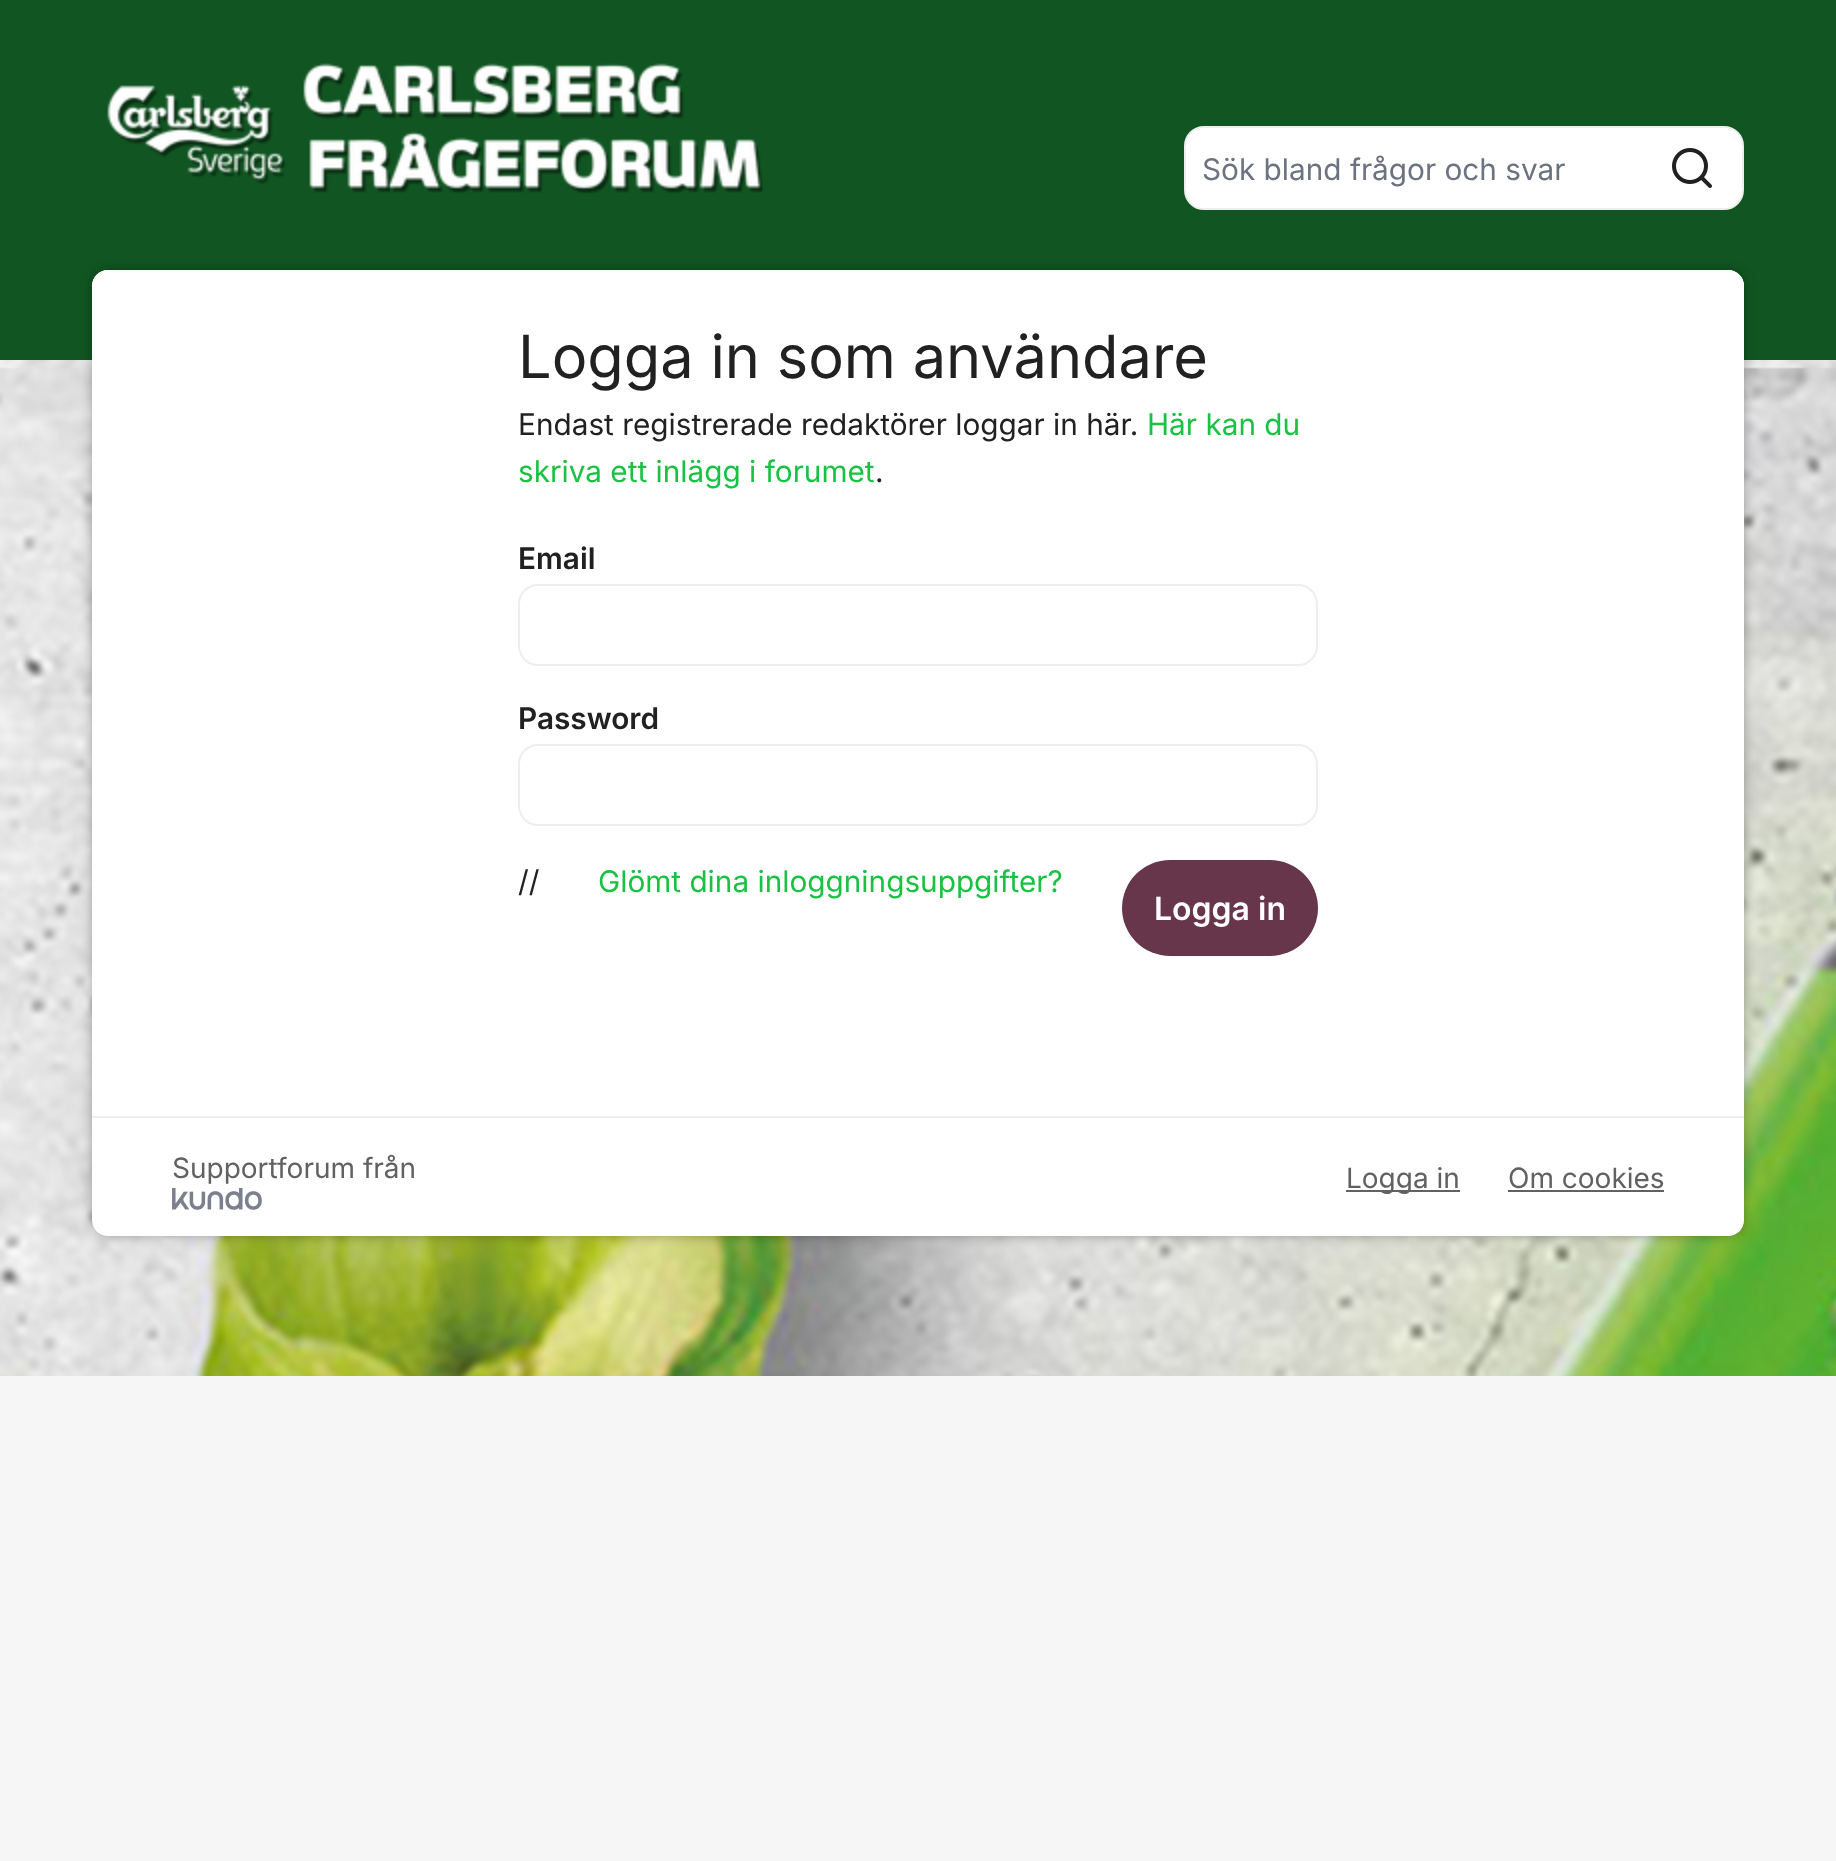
<svg xmlns="http://www.w3.org/2000/svg" width="1836" height="1861">
<rect width="100%" height="100%" fill="#f6f6f6"/>
<rect width="1836" height="360" fill="#115622"/>
<image x="107" y="63" width="657" height="131" href="media/1.png"/>
<rect x="1185" y="127" width="558" height="82" rx="19" fill="#fff" stroke="#eee" stroke-width="2"/>
<text x="1202" y="180" style="font-family:Inter;font-size:29.75px;fill:#6b7280">Sök bland frågor och svar</text>
<image x="1672" y="148" width="40" height="40" href="media/2.png"/>
<image x="0" y="360" width="1836" height="1016" href="media/3.png"/>
<rect x="92" y="270" width="1652" height="966" rx="16" fill="#0000004d" filter="blur(6px)"/>
<path d="M108 270h1620c9 0 16 7 16 16v830h-1652v-830c0-9 7-16 16-16z" fill="#fff"/>
<rect x="92" y="270" width="1652" height="846" rx="16" fill="#fff"/>
<text x="518" y="378" style="font-family:Inter;font-size:59.5px;fill:#212121">Logga in som användare</text>
<text x="518" y="435" style="font-family:Inter;font-size:29.75px;fill:#212121">Endast registrerade redaktörer loggar in här.</text>
<text x="1147" y="435" style="font-family:Inter;font-size:29.75px;fill:#19c243">Här kan du</text>
<text x="518" y="482" style="font-family:Inter;font-size:29.75px;fill:#19c243">skriva ett inlägg i forumet</text>
<text x="875" y="482" style="font-family:Inter;font-size:29.75px;fill:#212121">.</text>
<text x="518" y="569" style="font-family:Inter;font-size:29.75px;font-weight:600;fill:#212121">Email</text>
<rect x="519" y="585" width="798" height="80" rx="19" fill="none" stroke="#eee" stroke-width="2"/>
<text x="518" y="729" style="font-family:Inter;font-size:29.75px;font-weight:600;fill:#212121">Password</text>
<rect x="519" y="745" width="798" height="80" rx="19" fill="none" stroke="#eee" stroke-width="2"/>
<text x="518" y="892" style="font-family:Inter;font-size:29.75px;fill:#212121">//</text>
<text x="598" y="892" style="font-family:Inter;font-size:29.75px;fill:#19c243">Glömt dina inloggningsuppgifter?</text>
<rect x="1122" y="860" width="196" height="96" rx="48" fill="#67364b"/>
<text x="1154" y="920" style="font-family:Inter;font-size:32px;font-weight:600;fill:#fff">Logga in</text>
<path d="M92 1118h1652v102c0 9-7 16-16 16h-1620c-9 0-16-7-16-16z" fill="#fff"/>
<rect x="92" y="1116" width="1652" height="2" fill="#eee"/>
<text x="172" y="1178" style="font-family:Inter;font-size:28px;fill:#616161">Supportforum från</text>
<image x="172" y="1188" width="90" height="22" href="media/4.png"/>
<rect x="1346" y="1190" width="114" height="2" fill="#616161"/>
<text x="1346" y="1188" style="font-family:Inter;font-size:28px;fill:#616161">Logga in</text>
<text x="1508" y="1188" style="font-family:Inter;font-size:28px;fill:#616161">Om cookies</text>
<rect x="1508" y="1190" width="156" height="2" fill="#616161"/>
</svg>
